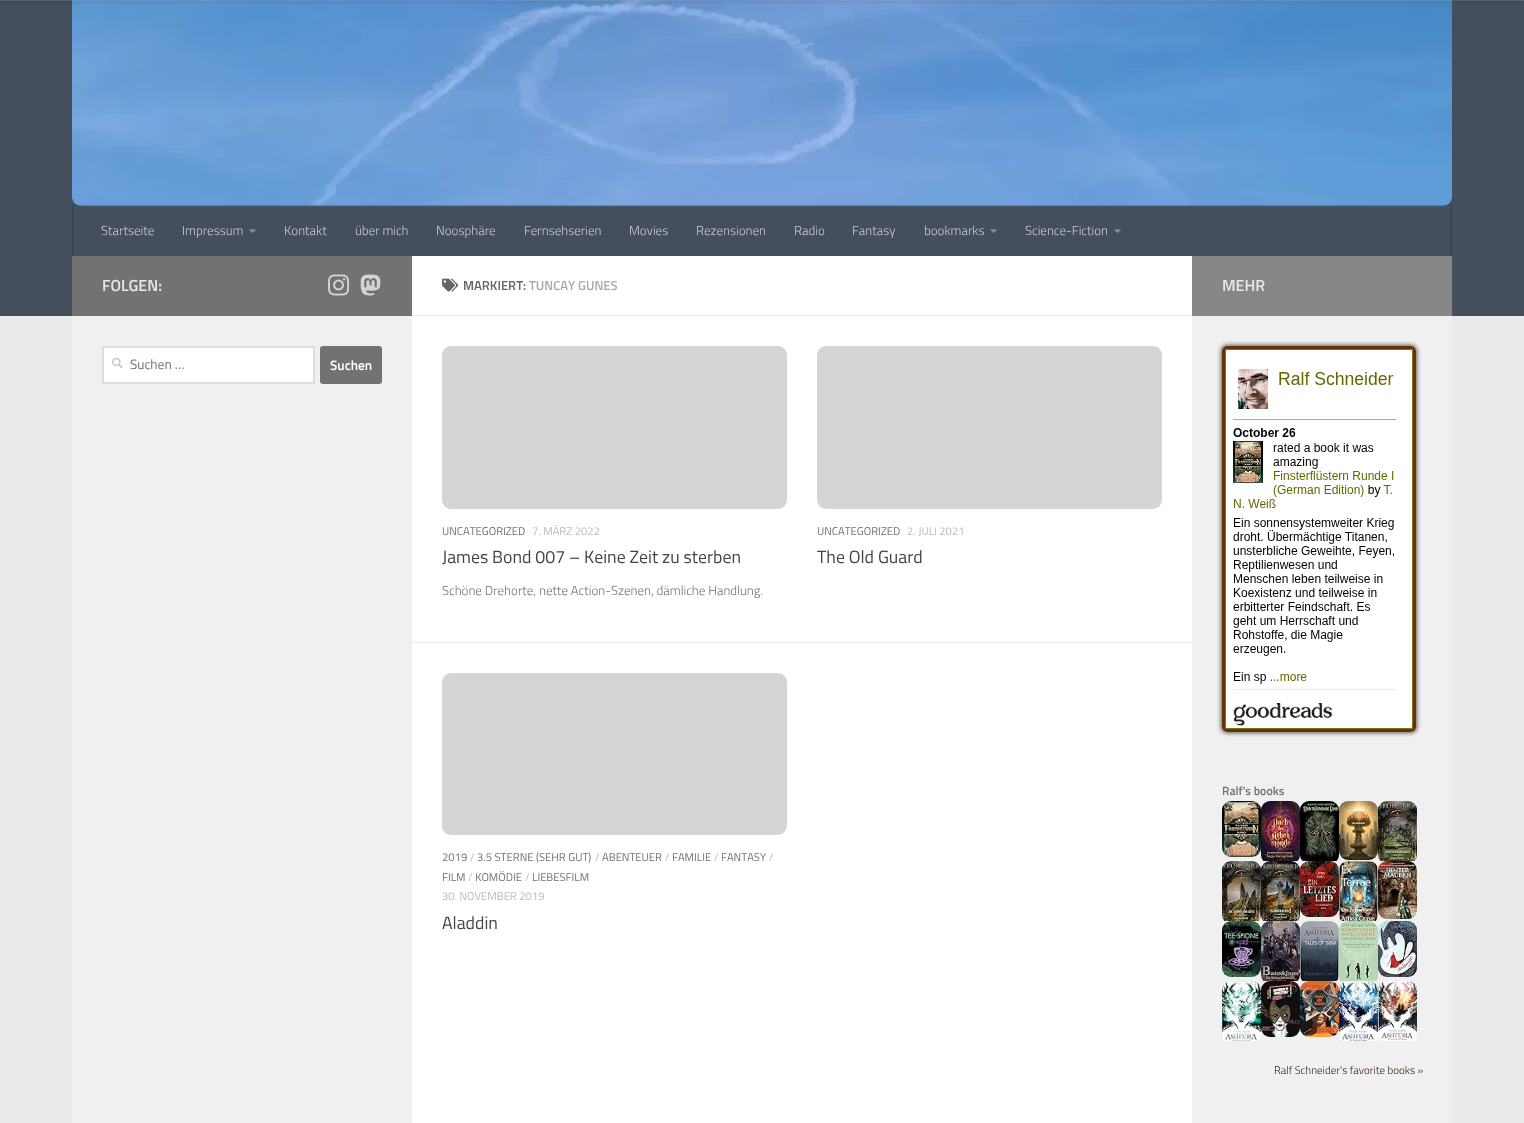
<svg xmlns="http://www.w3.org/2000/svg" width="1524" height="1123">
<rect width="100%" height="100%" fill="#eaeaea"/>
<rect width="1524" height="316" fill="#454e5c"/>
<rect x="72" y="206" width="1380" height="1" fill="#4e5764"/>
<image x="72" y="0" width="1380" height="206" href="media/1.png"/>
<rect width="1524" height="1" fill="#ffffff26"/>
<rect y="-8" width="1524" height="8" fill="#00000033" filter="blur(2.5px)"/>
<rect x="72" y="205" width="1380" height="1" fill="#00000033"/>
<rect x="1451" y="206" width="1" height="50" fill="#373e4a"/>
<rect x="1451" y="206" width="1" height="1" fill="#414853"/>
<rect x="72" y="206" width="1" height="50" fill="#373e4a"/>
<rect x="72" y="206" width="1" height="1" fill="#414853"/>
<text x="101" y="235" style="font-family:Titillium;font-size:13px;font-weight:300;fill:#c7cace">Startseite</text>
<text x="182" y="235" style="font-family:Titillium;font-size:13px;font-weight:300;fill:#c7cace">Impressum</text>
<image x="249" y="229" width="7" height="4" href="media/2.png"/>
<text x="284" y="235" style="font-family:Titillium;font-size:13px;font-weight:300;fill:#c7cace">Kontakt</text>
<text x="355" y="235" style="font-family:Titillium;font-size:13px;font-weight:300;fill:#c7cace">über mich</text>
<text x="436" y="235" style="font-family:Titillium;font-size:13px;font-weight:300;fill:#c7cace">Noosphäre</text>
<text x="524" y="235" style="font-family:Titillium;font-size:13px;font-weight:300;fill:#c7cace">Fernsehserien</text>
<text x="629" y="235" style="font-family:Titillium;font-size:13px;font-weight:300;fill:#c7cace">Movies</text>
<text x="696" y="235" style="font-family:Titillium;font-size:13px;font-weight:300;fill:#c7cace">Rezensionen</text>
<text x="794" y="235" style="font-family:Titillium;font-size:13px;font-weight:300;fill:#c7cace">Radio</text>
<text x="852" y="235" style="font-family:Titillium;font-size:13px;font-weight:300;fill:#c7cace">Fantasy</text>
<text x="924" y="235" style="font-family:Titillium;font-size:13px;font-weight:300;fill:#c7cace">bookmarks</text>
<image x="990" y="229" width="7" height="4" href="media/2.png"/>
<text x="1025" y="235" style="font-family:Titillium;font-size:13px;font-weight:300;fill:#c7cace">Science-Fiction</text>
<image x="1114" y="229" width="7" height="4" href="media/2.png"/>
<rect x="412" y="256" width="780" height="867" fill="#fff"/>
<rect x="72" y="256" width="340" height="60" fill="#727272"/>
<text x="102" y="291" style="font-family:Titillium;font-size:16px;font-weight:600;fill:#e7e7e7">FOLGEN:</text>
<image x="328" y="274" width="22" height="22" href="media/3.png"/>
<image x="360" y="274" width="21" height="22" href="media/4.png"/>
<rect x="72" y="316" width="340" height="807" fill="#f0f0f0"/>
<rect x="103" y="347" width="211" height="36" fill="#fff" stroke="#ddd" stroke-width="2"/>
<image x="112" y="357" width="11" height="12" href="media/5.png"/>
<text x="130" y="369" style="font-family:Titillium;font-size:13.5px;fill:#727272">Suchen …</text>
<rect x="320" y="346" width="62" height="38" rx="3" fill="#727272"/>
<text x="330" y="370" style="font-family:Titillium;font-size:13.5px;font-weight:600;fill:#fff">Suchen</text>
<rect x="412" y="315" width="780" height="1" fill="#eee"/>
<image x="442" y="278" width="17" height="14" href="media/6.png"/>
<text x="463" y="290" style="font-family:Titillium;font-size:13px;font-weight:600;fill:#666">MARKIERT:</text>
<text x="529" y="290" style="font-family:Titillium;font-size:13px;font-weight:600;fill:#aaa">TUNCAY GUNES</text>
<rect x="412" y="642" width="780" height="1" fill="#eee"/>
<image x="442" y="346" width="345" height="163" href="media/7.png"/>
<text x="442" y="535" style="font-family:Titillium;font-size:11.25px;fill:#727272">UNCATEGORIZED</text>
<text x="532" y="535" style="font-family:Titillium;font-size:11.25px;fill:#bbb">7. MÄRZ 2022</text>
<text x="442" y="563" style="font-family:Titillium;font-size:17.8px;fill:#444">James Bond 007 – Keine Zeit zu sterben</text>
<text x="442" y="595" style="font-family:Titillium;font-size:13px;font-weight:300;fill:#727272">Schöne Drehorte, nette Action-Szenen, dämliche Handlung.</text>
<image x="817" y="346" width="345" height="163" href="media/8.png"/>
<text x="817" y="535" style="font-family:Titillium;font-size:11.25px;fill:#727272">UNCATEGORIZED</text>
<text x="907" y="535" style="font-family:Titillium;font-size:11.25px;fill:#bbb">2. JULI 2021</text>
<text x="817" y="563" style="font-family:Titillium;font-size:17.8px;fill:#444">The Old Guard</text>
<image x="442" y="673" width="345" height="162" href="media/9.png"/>
<text x="442" y="861" style="font-family:Titillium;font-size:11.25px;fill:#727272">2019</text>
<text x="470" y="861" style="font-family:Titillium;font-size:11.25px;fill:#bbb">/</text>
<text x="477" y="861" style="font-family:Titillium;font-size:11.25px;fill:#727272">3.5 STERNE (SEHR GUT)</text>
<text x="595" y="861" style="font-family:Titillium;font-size:11.25px;fill:#bbb">/</text>
<text x="602" y="861" style="font-family:Titillium;font-size:11.25px;fill:#727272">ABENTEUER</text>
<text x="665" y="861" style="font-family:Titillium;font-size:11.25px;fill:#bbb">/</text>
<text x="672" y="861" style="font-family:Titillium;font-size:11.25px;fill:#727272">FAMILIE</text>
<text x="714" y="861" style="font-family:Titillium;font-size:11.25px;fill:#bbb">/</text>
<text x="721" y="861" style="font-family:Titillium;font-size:11.25px;fill:#727272">FANTASY</text>
<text x="769" y="861" style="font-family:Titillium;font-size:11.25px;fill:#bbb">/</text>
<text x="442" y="881" style="font-family:Titillium;font-size:11.25px;fill:#727272">FILM</text>
<text x="468" y="881" style="font-family:Titillium;font-size:11.25px;fill:#bbb">/</text>
<text x="475" y="881" style="font-family:Titillium;font-size:11.25px;fill:#727272">KOMÖDIE</text>
<text x="525" y="881" style="font-family:Titillium;font-size:11.25px;fill:#bbb">/</text>
<text x="532" y="881" style="font-family:Titillium;font-size:11.25px;fill:#727272">LIEBESFILM</text>
<text x="442" y="900" style="font-family:Titillium;font-size:11.25px;fill:#bbb">30. NOVEMBER 2019</text>
<text x="442" y="929" style="font-family:Titillium;font-size:17.8px;fill:#444">Aladdin</text>
<rect x="1192" y="256" width="260" height="60" fill="#878787"/>
<text x="1222" y="291" style="font-family:Titillium;font-size:16px;font-weight:600;fill:#e7e7e7">MEHR</text>
<rect x="1192" y="316" width="260" height="807" fill="#f0f0f0"/>
<rect x="1221" y="345" width="196" height="388" rx="6" fill="#595959" filter="blur(2px)"/>
<rect x="1222" y="346" width="194" height="386" rx="5" fill="#fff"/>
<rect x="1225.5" y="349.5" width="187" height="379" rx="1.5" fill="none" stroke="#7d730b"/>
<rect x="1223.5" y="347.5" width="191" height="383" rx="3.5" fill="none" stroke="#683205" stroke-width="3"/>
<image x="1233" y="369" width="163" height="321" href="media/10.png"/>
<image x="1233" y="703" width="100" height="23" href="media/11.png"/>
<text x="1222" y="795" style="font-family:Titillium;font-size:12px;font-weight:600;fill:#727272">Ralf's books</text>
<image x="1222" y="801" width="39" height="56" href="media/12.png"/>
<image x="1261" y="801" width="39" height="60" href="media/13.png"/>
<image x="1300" y="801" width="39" height="60" href="media/14.png"/>
<image x="1339" y="801" width="39" height="59" href="media/15.png"/>
<image x="1378" y="801" width="39" height="60" href="media/16.png"/>
<image x="1222" y="861" width="39" height="60" href="media/17.png"/>
<image x="1261" y="861" width="39" height="60" href="media/18.png"/>
<image x="1300" y="861" width="39" height="56" href="media/19.png"/>
<image x="1339" y="861" width="39" height="60" href="media/20.png"/>
<image x="1378" y="861" width="39" height="58" href="media/21.png"/>
<image x="1222" y="921" width="39" height="56" href="media/22.png"/>
<image x="1261" y="921" width="39" height="60" href="media/23.png"/>
<image x="1300" y="921" width="39" height="60" href="media/24.png"/>
<image x="1339" y="921" width="39" height="60" href="media/25.png"/>
<image x="1378" y="921" width="39" height="56" href="media/26.png"/>
<image x="1222" y="981" width="39" height="60" href="media/27.png"/>
<image x="1261" y="981" width="39" height="56" href="media/28.png"/>
<image x="1300" y="981" width="39" height="56" href="media/29.png"/>
<image x="1339" y="981" width="39" height="60" href="media/30.png"/>
<image x="1378" y="981" width="39" height="60" href="media/31.png"/>
<text x="1274" y="1074" style="font-family:Titillium;font-size:11px;font-weight:300;fill:#382110">Ralf Schneider's favorite books »</text>
</svg>
